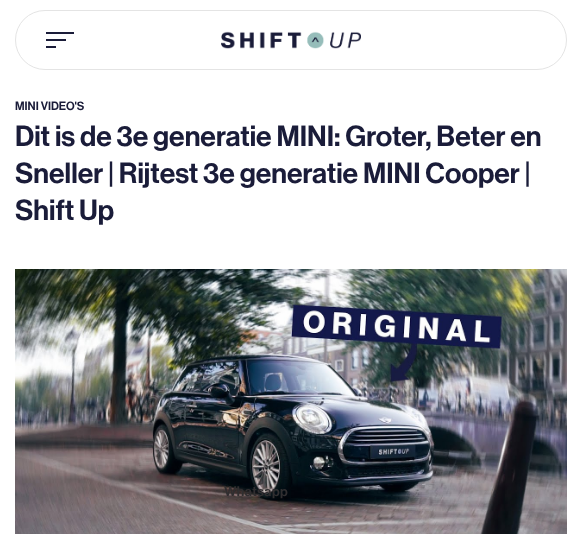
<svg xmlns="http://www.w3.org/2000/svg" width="582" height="534">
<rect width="100%" height="100%" fill="#fff"/>
<rect x="15.5" y="10.5" width="551" height="59" rx="29.5" fill="none" stroke="#e4e4e4"/>
<rect x="46" y="32" width="28" height="2" fill="#1a1c39"/>
<rect x="46" y="39" width="20" height="2" fill="#1a1c39"/>
<rect x="46" y="46" width="10" height="2" fill="#1a1c39"/>
<image x="221" y="31" width="140" height="18" href="media/1.png"/>
<text x="15" y="110" style="font-family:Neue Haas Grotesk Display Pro;font-size:11.75px;font-weight:500;fill:#1a1c39">MINI VIDEO'S</text>
<text x="15" y="146" style="font-family:Neue Haas Grotesk Display Pro;font-size:28.6px;font-weight:500;fill:#1a1c39">Dit is de 3e generatie MINI: Groter, Beter en</text>
<text x="15" y="183" style="font-family:Neue Haas Grotesk Display Pro;font-size:28.6px;font-weight:500;fill:#1a1c39">Sneller | Rijtest 3e generatie MINI Cooper |</text>
<text x="15" y="220" style="font-family:Neue Haas Grotesk Display Pro;font-size:28.6px;font-weight:500;fill:#1a1c39">Shift Up</text>
<image x="15" y="269" width="552" height="265" href="media/2.png"/>
<text x="224" y="496" style="font-family:Neue Haas Grotesk Display Pro;font-size:13.5px;font-weight:500;letter-spacing:0.5px;fill:#302e30">Whatsapp</text>
</svg>
